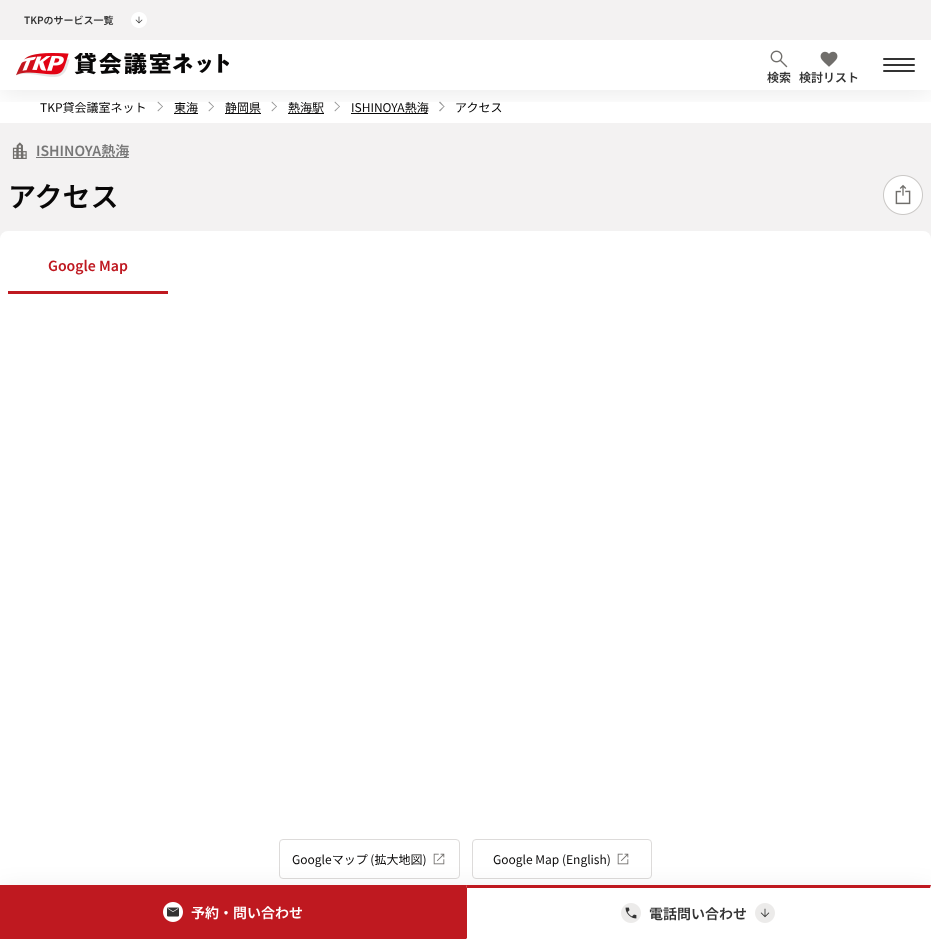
<svg xmlns="http://www.w3.org/2000/svg" width="931" height="939">
<defs>
<clipPath id="clip1"><rect x="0" y="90" width="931" height="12"/></clipPath>
</defs>
<rect width="100%" height="100%" fill="#fff"/>
<g clip-path="url(#clip1)">
<rect y="44" width="931" height="50" fill="#00000014" filter="blur(12px)"/>
</g>
<rect width="931" height="40" fill="#f3f2f2"/>
<text x="24" y="24" style="font-family:Noto Sans JP;font-size:10px;font-weight:600;fill:#333">TKPのサービス一覧</text>
<image x="131" y="12" width="16" height="16" href="media/1.png"/>
<image x="16" y="53" width="213" height="24" href="media/2.png"/>
<rect x="883" y="58" width="32" height="2" rx="1" fill="#333"/>
<rect x="883" y="64" width="32" height="2" rx="1" fill="#333"/>
<rect x="883" y="70" width="32" height="2" rx="1" fill="#333"/>
<image x="770" y="50" width="18" height="18" href="media/3.png"/>
<text x="767" y="82" style="font-family:Noto Sans JP;font-size:12px;font-weight:600;fill:#333">検索</text>
<image x="820" y="51" width="18" height="16" href="media/4.png"/>
<text x="799" y="82" style="font-family:Noto Sans JP;font-size:12px;font-weight:600;fill:#333">検討リスト</text>
<text x="40" y="112" style="font-family:Noto Sans JP;font-size:12px;fill:#080707">TKP貸会議室ネット</text>
<path d="M158 101.5l5 5l-.5 .5l-5-4.5z" fill="#979797"/>
<path d="M162.5 106l.5 .5l-5 5l-.5-1z" fill="#989898"/>
<text x="174" y="112" style="font-family:Noto Sans JP;font-size:12px;fill:#080707">東海</text>
<rect x="174" y="113" width="24" height="1" fill="#0a0a0a"/>
<path d="M209 101.5l5 5l-.5 .5l-5-4.5z" fill="#979797"/>
<path d="M213.5 106l.5 .5l-5 5l-.5-1z" fill="#989898"/>
<text x="225" y="112" style="font-family:Noto Sans JP;font-size:12px;fill:#080707">静岡県</text>
<rect x="225" y="113" width="36" height="1" fill="#0a0a0a"/>
<path d="M272 101.5l5 5l-.5 .5l-5-4.5z" fill="#979797"/>
<path d="M276.5 106l.5 .5l-5 5l-.5-1z" fill="#989898"/>
<text x="288" y="112" style="font-family:Noto Sans JP;font-size:12px;fill:#080707">熱海駅</text>
<rect x="288" y="113" width="36" height="1" fill="#0a0a0a"/>
<path d="M335 101.5l5 5l-.5 .5l-5-4.5z" fill="#979797"/>
<path d="M339.5 106l.5 .5l-5 5l-.5-1z" fill="#989898"/>
<text x="351" y="112" style="font-family:Noto Sans JP;font-size:12px;fill:#080707">ISHINOYA熱海</text>
<rect x="351" y="113" width="77" height="1" fill="#0a0a0a"/>
<path d="M440 101.5l4.5 5l-.5 .5l-5-4.5z" fill="#979797"/>
<path d="M444 106l.5 .5l-4.5 5l-1-1z" fill="#989898"/>
<text x="455" y="112" style="font-family:Noto Sans JP;font-size:12px;fill:#000">アクセス</text>
<rect y="123" width="931" height="116" fill="#f3f2f2"/>
<image x="12" y="142" width="15" height="17" href="media/5.png"/>
<rect x="36" y="157" width="93" height="1" fill="#777"/>
<text x="36" y="156" style="font-family:Noto Sans JP;font-size:14px;font-weight:600;fill:#777">ISHINOYA熱海</text>
<text x="8" y="207" style="font-family:Noto Sans JP;font-size:28px;font-weight:600;fill:#080707">アクセス</text>
<image x="883" y="175" width="40" height="40" href="media/6.png"/>
<rect y="231" width="931" height="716" rx="8" fill="#fff"/>
<rect x="8" y="291" width="160" height="3" fill="#bf1920"/>
<text x="48" y="271" style="font-family:Noto Sans JP;font-size:14px;font-weight:600;fill:#bf1820">Google Map</text>
<rect x="279.5" y="839.5" width="180" height="39" rx="3.5" fill="none" stroke="#dddbda"/>
<text x="292" y="864" style="font-family:Noto Sans JP;font-size:12px;fill:#080707">Googleマップ (拡大地図)</text>
<image x="433" y="853" width="12" height="12" href="media/7.png"/>
<rect x="472.5" y="839.5" width="179" height="39" rx="3.5" fill="none" stroke="#dddbda"/>
<text x="493" y="864" style="font-family:Noto Sans JP;font-size:12px;fill:#080707">Google Map (English)</text>
<image x="617" y="853" width="12" height="12" href="media/7.png"/>
<rect y="889" width="931" height="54" fill="#00000014" filter="blur(12px)"/>
<rect x="466" y="885" width="465" height="54" fill="#fff"/>
<rect y="885" width="466" height="54" fill="#bf1920"/>
<image x="163" y="902" width="20" height="20" href="media/8.png"/>
<text x="191" y="918" style="font-family:Noto Sans JP;font-size:14px;font-weight:600;fill:#fff">予約・問い合わせ</text>
<path d="M466 885h465l-1 3h-463z" fill="#bf1920"/>
<path d="M466 939v-54l1 3v50z" fill="#bf1920"/>
<image x="621" y="903" width="20" height="20" href="media/9.png"/>
<text x="649" y="919" style="font-family:Noto Sans JP;font-size:14px;font-weight:600;fill:#333">電話問い合わせ</text>
<image x="755" y="903" width="20" height="20" href="media/10.png"/>
</svg>
